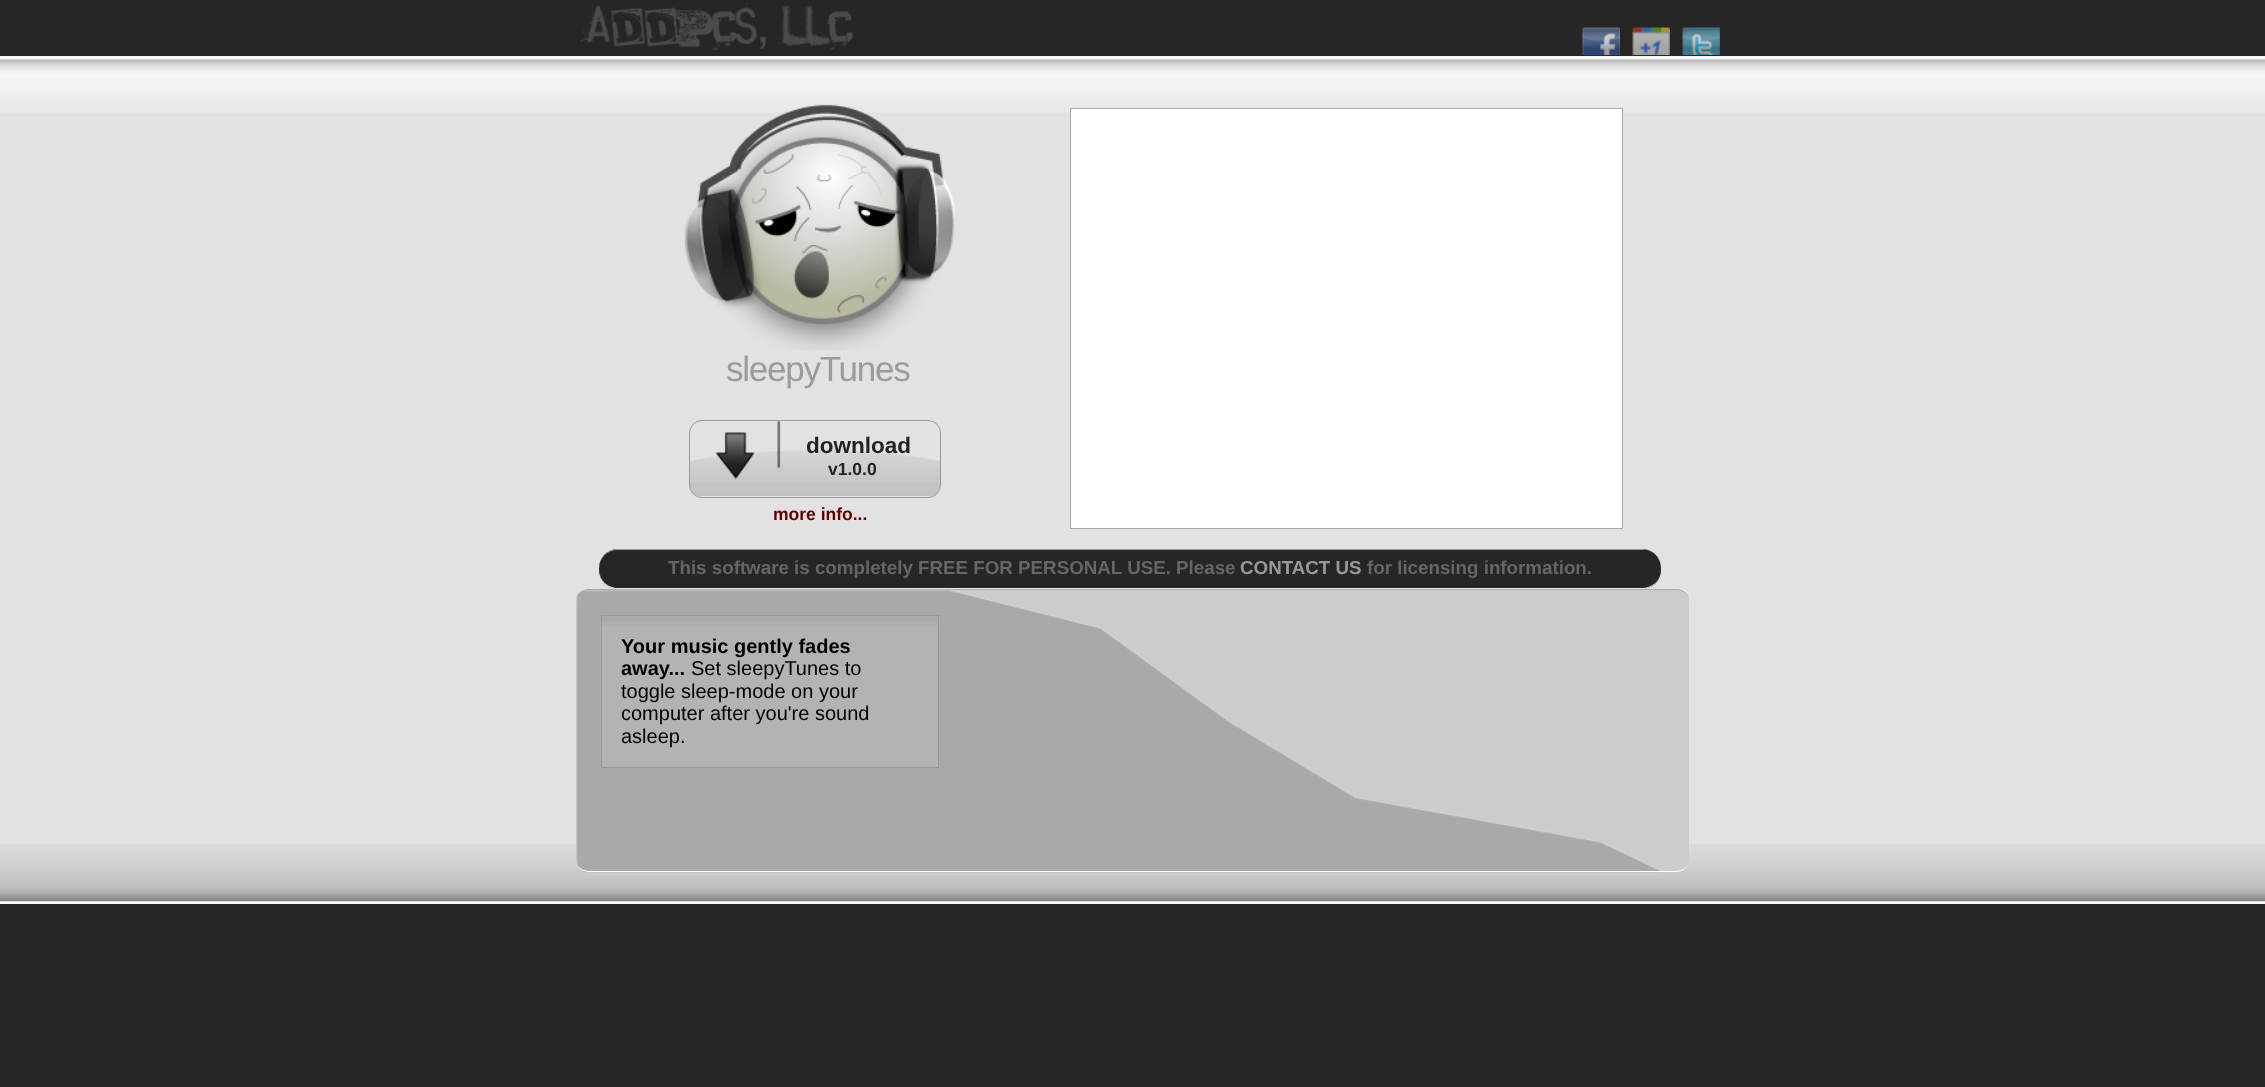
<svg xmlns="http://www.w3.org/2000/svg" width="2265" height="1087">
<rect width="100%" height="100%" fill="#262626"/>
<image x="580" y="3" width="274" height="47" href="media/1.png"/>
<image x="1582" y="27" width="38" height="28" href="media/2.png"/>
<image x="1632" y="27" width="38" height="28" href="media/3.png"/>
<image x="1682" y="27" width="38" height="28" href="media/4.png"/>
<rect y="56" width="2265" height="848" fill="#e2e2e2"/>
<image x="0" y="56" width="2265" height="57" href="media/5.png"/>
<image x="0" y="844" width="2265" height="60" href="media/6.png"/>
<image x="684" y="104" width="271" height="246" href="media/7.png"/>
<text x="726" y="381" style="font-family:Liberation Sans;font-size:35px;letter-spacing:-1.25px;fill:#9f9999">sleepyTunes</text>
<rect x="689.5" y="420.5" width="251" height="77" rx="12.5" fill="none" stroke="#999"/>
<image x="690" y="421" width="250" height="75" href="media/8.png"/>
<text x="806" y="453" style="font-family:Liberation Sans;font-size:22.5px;font-weight:bold;fill:#222">download</text>
<text x="828" y="475" style="font-family:Liberation Sans;font-size:17.5px;font-weight:bold;fill:#222">v1.0.0</text>
<text x="773" y="520" style="font-family:Liberation Sans;font-size:17.5px;font-weight:bold;fill:#600">more info...</text>
<rect x="1070.5" y="108.5" width="552" height="420" fill="#fff" stroke="#aaa"/>
<rect x="599" y="549" width="1062" height="40" rx="19" fill="#262626"/>
<path d="M618 549c-11 0-19 9-19 20c0-11 8-19 19-19h1024h6c9 2 13 10 13 19c0-11-7-20-19-20z" fill="#999"/>
<path d="M615 589c-10-2-16-11-16-20c0 9 7 19 19 19h1024c10 0 17-7 19-15c-2 8-8 14-16 16zm1046-18v2v-4z" fill="#eee" fill-rule="evenodd"/>
<text x="668" y="574" style="font-family:Liberation Sans;font-size:18.75px;font-weight:bold;fill:#666">This software is completely FREE FOR PERSONAL USE. Please</text>
<text x="1240" y="574" style="font-family:Liberation Sans;font-size:18.75px;font-weight:bold;fill:#999">CONTACT US</text>
<text x="1367" y="574" style="font-family:Liberation Sans;font-size:18.75px;font-weight:bold;fill:#666">for licensing information.</text>
<rect x="576" y="589" width="1113" height="284" rx="13" fill="#ccc"/>
<image x="576" y="590" width="1089" height="283" href="media/9.png"/>
<path d="M589 589h1087c5 0 13 4 13 10c-1-5-7-9-13-9h-1087c-6 0-12 4-13 9c0-6 8-10 13-10z" fill="#aaa"/>
<path d="M1689 862c-1 6-7 10-13 10h-1087c-6 0-12-4-13-10c1 5 7 9 13 9h1087c6 0 12-4 13-9z" fill="#fff"/>
<rect x="602" y="616" width="336" height="151" fill="#b3b3b3"/>
<image x="602" y="616" width="336" height="9" href="media/10.png"/>
<rect x="601.5" y="615.5" width="337" height="152" fill="none" stroke="#999"/>
<text x="621" y="653" style="font-family:Liberation Sans;font-size:20px;font-weight:bold;fill:#000">Your music gently fades</text>
<text x="621" y="675" style="font-family:Liberation Sans;font-size:20px;font-weight:bold;fill:#000">away...</text>
<text x="691" y="675" style="font-family:Liberation Sans;font-size:20px;fill:#000">Set sleepyTunes to</text>
<text x="621" y="698" style="font-family:Liberation Sans;font-size:20px;fill:#000">toggle sleep-mode on your</text>
<text x="621" y="720" style="font-family:Liberation Sans;font-size:20px;fill:#000">computer after you're sound</text>
<text x="621" y="743" style="font-family:Liberation Sans;font-size:20px;fill:#000">asleep.</text>
</svg>
